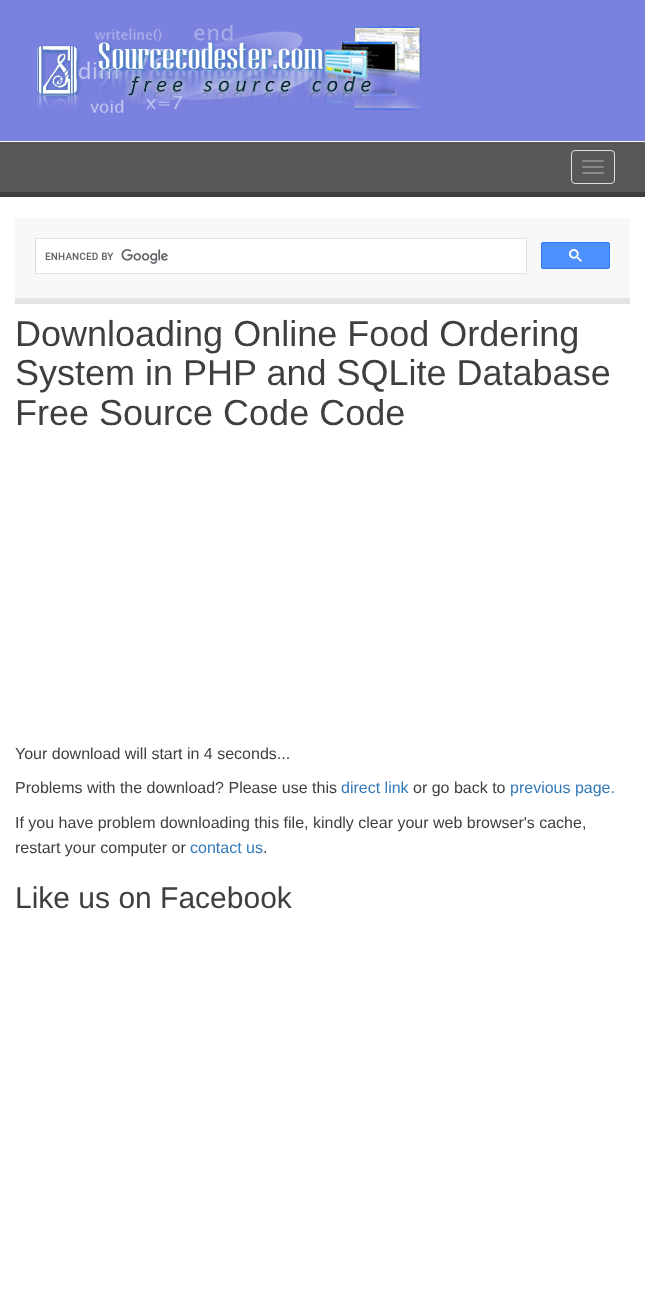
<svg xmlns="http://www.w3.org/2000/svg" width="645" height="1307">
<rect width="100%" height="100%" fill="#7a81de"/>
<image x="36" y="25" width="386" height="88" href="media/1.png"/>
<rect y="142" width="645" height="50" fill="#585858"/>
<rect y="141" width="645" height="1" fill="#fff"/>
<rect y="192" width="645" height="5" fill="#3d3d3d"/>
<rect x="571.5" y="150.5" width="43" height="33" rx="3.5" fill="none" stroke="#ddd"/>
<rect x="582" y="160" width="22" height="2" rx="1" fill="#888"/>
<rect x="582" y="166" width="22" height="2" rx="1" fill="#888"/>
<rect x="582" y="172" width="22" height="2" rx="1" fill="#888"/>
<rect y="197" width="645" height="1110" fill="#fff"/>
<rect x="15" y="218" width="615" height="80" fill="#f8f8f8"/>
<rect x="15" y="298" width="615" height="6" fill="#e4e4e4"/>
<rect x="35.5" y="238.5" width="491" height="35" fill="#fff" stroke="#dfe1e5"/>
<image x="45" y="249" width="123" height="15" href="media/2.png"/>
<rect x="541.5" y="242.5" width="68" height="26" rx="1.5" fill="#4d90fe" stroke="#3079ed"/>
<image x="569" y="249" width="13" height="13" href="media/3.png"/>
<text x="15" y="346" style="font-family:Liberation Sans;font-size:36px;fill:#3f3f3f">Downloading Online Food Ordering</text>
<text x="15" y="385" style="font-family:Liberation Sans;font-size:36px;fill:#3f3f3f">System in PHP and SQLite Database</text>
<text x="15" y="425" style="font-family:Liberation Sans;font-size:36px;fill:#3f3f3f">Free Source Code Code</text>
<text x="15" y="759" style="font-family:Liberation Sans;font-size:16px;fill:#3f3f3f">Your download will start in 4 seconds...</text>
<text x="15" y="793" style="font-family:Liberation Sans;font-size:16px;fill:#3f3f3f">Problems with the download? Please use this</text>
<text x="341" y="793" style="font-family:Liberation Sans;font-size:16px;fill:#337ab7">direct link</text>
<text x="413" y="793" style="font-family:Liberation Sans;font-size:16px;fill:#3f3f3f">or go back to</text>
<text x="510" y="793" style="font-family:Liberation Sans;font-size:16px;fill:#337ab7">previous page.</text>
<text x="15" y="828" style="font-family:Liberation Sans;font-size:16px;fill:#3f3f3f">If you have problem downloading this file, kindly clear your web browser's cache,</text>
<text x="15" y="853" style="font-family:Liberation Sans;font-size:16px;fill:#3f3f3f">restart your computer or</text>
<text x="190" y="853" style="font-family:Liberation Sans;font-size:16px;fill:#337ab7">contact us</text>
<text x="263" y="853" style="font-family:Liberation Sans;font-size:16px;fill:#3f3f3f">.</text>
<text x="15" y="908" style="font-family:Liberation Sans;font-size:30px;fill:#3f3f3f">Like us on Facebook</text>
</svg>
